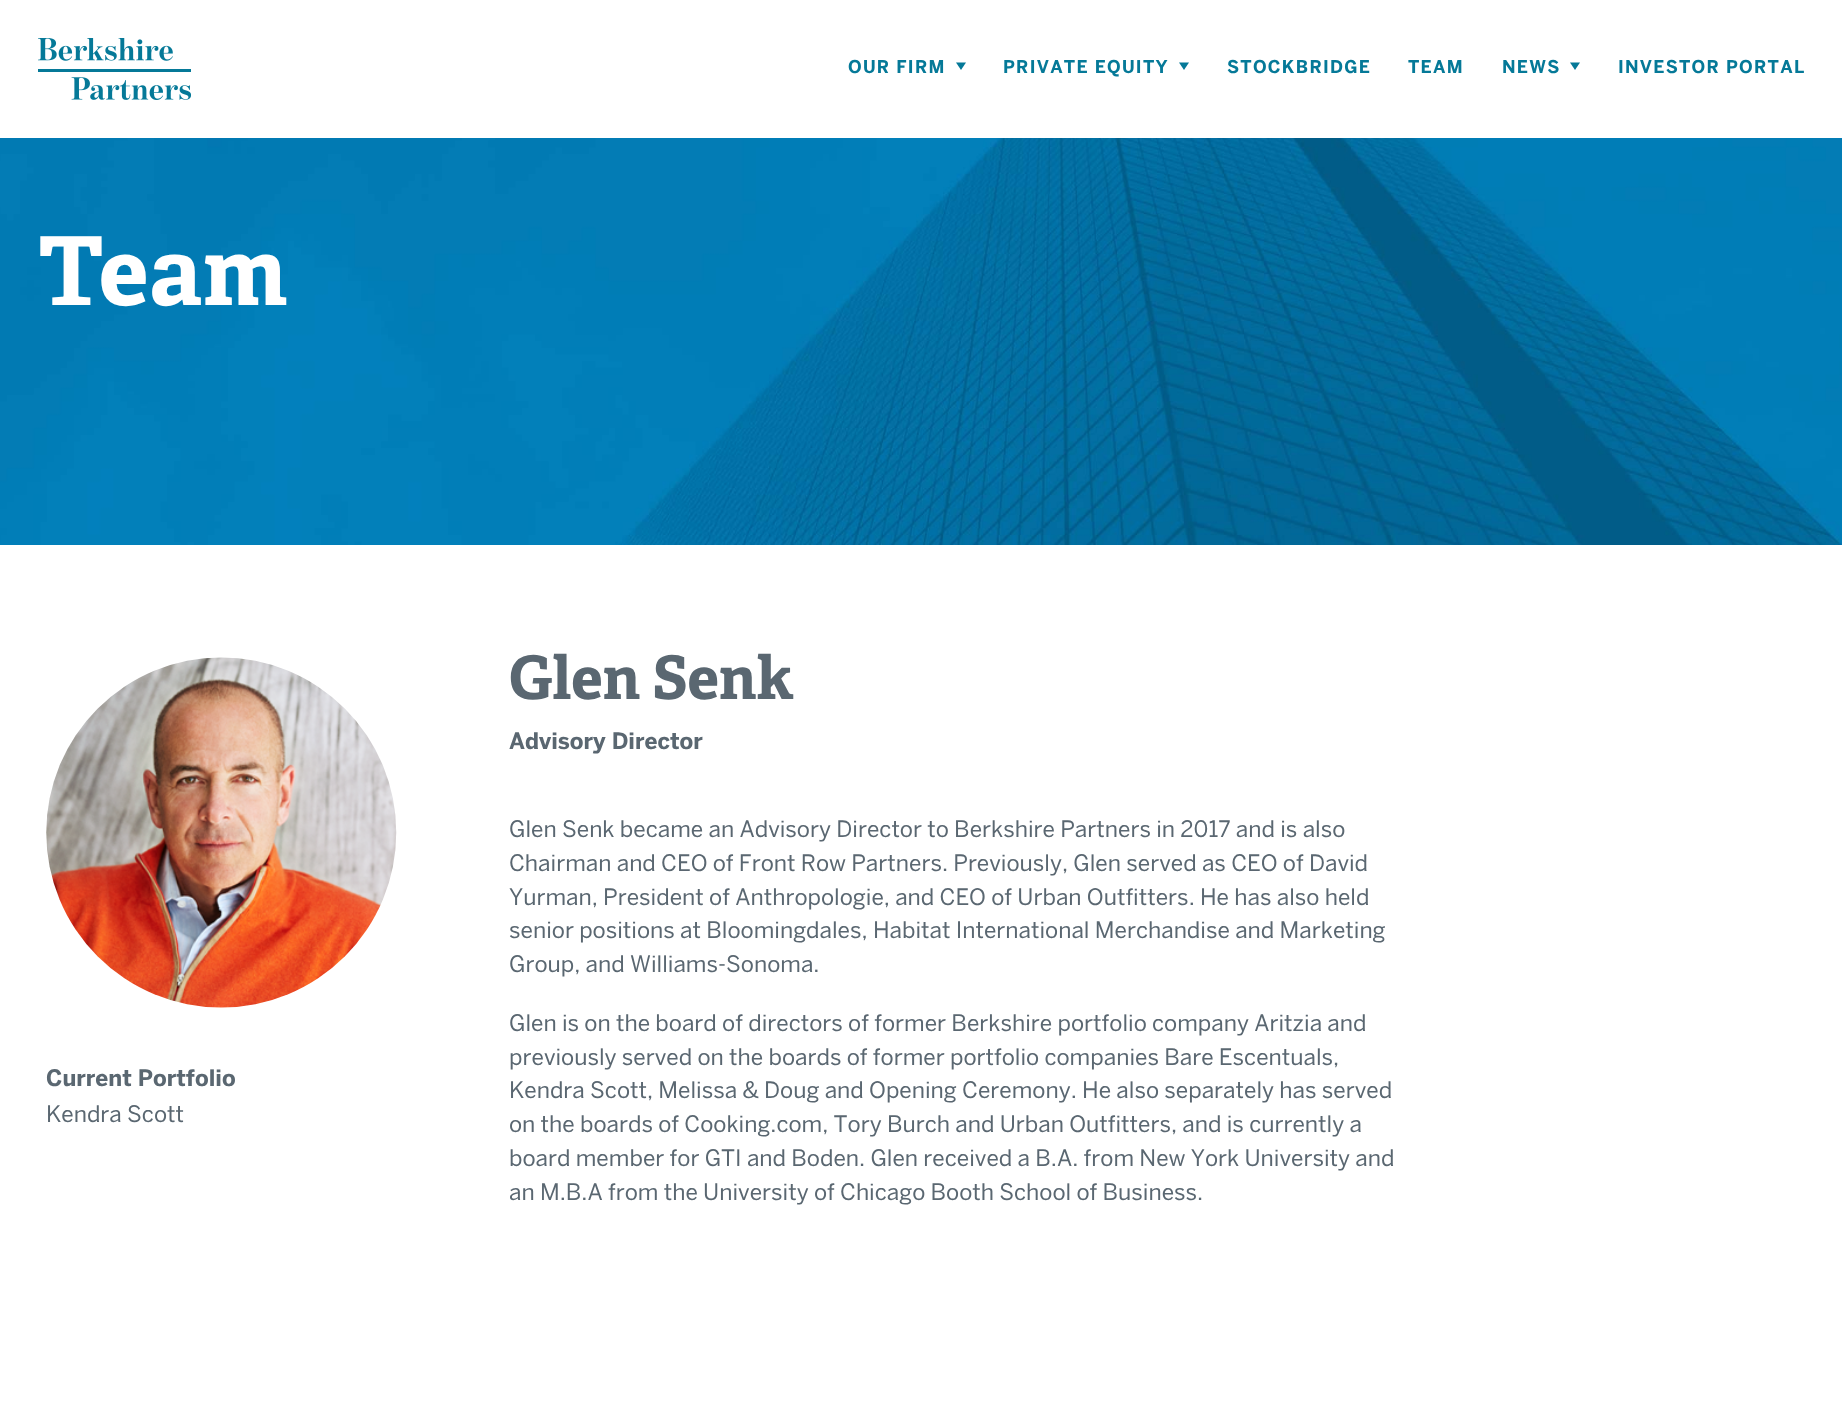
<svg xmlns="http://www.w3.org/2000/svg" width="1842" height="1418">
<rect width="100%" height="100%" fill="#fff"/>
<image x="38" y="38" width="153" height="62" href="media/1.png"/>
<text x="848" y="73" style="font-family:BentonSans;font-size:17.5px;font-weight:bold;letter-spacing:1.25px;fill:#057998">OUR FIRM</text>
<path d="M956 62.5h10l-5 7.5z" fill="#057998"/>
<text x="1003" y="73" style="font-family:BentonSans;font-size:17.5px;font-weight:bold;letter-spacing:1.25px;fill:#057998">PRIVATE EQUITY</text>
<path d="M1179 62.5h10l-5 7.5z" fill="#057998"/>
<text x="1227" y="73" style="font-family:BentonSans;font-size:17.5px;font-weight:bold;letter-spacing:1.25px;fill:#057998">STOCKBRIDGE</text>
<text x="1408" y="73" style="font-family:BentonSans;font-size:17.5px;font-weight:bold;letter-spacing:1.25px;fill:#057998">TEAM</text>
<text x="1502" y="73" style="font-family:BentonSans;font-size:17.5px;font-weight:bold;letter-spacing:1.25px;fill:#057998">NEWS</text>
<path d="M1570 62.5h10l-5 7.5z" fill="#057998"/>
<text x="1618" y="73" style="font-family:BentonSans;font-size:17.5px;font-weight:bold;letter-spacing:1.25px;fill:#057998">INVESTOR PORTAL</text>
<image x="0" y="138" width="1842" height="407" href="media/2.png"/>
<text x="38" y="305" style="font-family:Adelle;font-size:95px;font-weight:bold;letter-spacing:1.25px;fill:#fff">Team</text>
<text x="509" y="699" style="font-family:Adelle;font-size:60px;font-weight:bold;fill:#5a6771">Glen Senk</text>
<text x="509" y="749" style="font-family:BentonSans;font-size:22.5px;font-weight:bold;fill:#5a6771">Advisory Director</text>
<text x="46" y="1086" style="font-family:BentonSans;font-size:22.5px;font-weight:bold;fill:#5a6771">Current Portfolio</text>
<text x="46" y="1122" style="font-family:BentonSans;font-size:22.5px;fill:#5a6771">Kendra Scott</text>
<text x="509" y="837" style="font-family:BentonSans;font-size:22.5px;fill:#5a6771">Glen Senk became an Advisory Director to Berkshire Partners in 2017 and is also</text>
<text x="509" y="871" style="font-family:BentonSans;font-size:22.5px;fill:#5a6771">Chairman and CEO of Front Row Partners. Previously, Glen served as CEO of David</text>
<text x="509" y="905" style="font-family:BentonSans;font-size:22.5px;fill:#5a6771">Yurman, President of Anthropologie, and CEO of Urban Outfitters. He has also held</text>
<text x="509" y="938" style="font-family:BentonSans;font-size:22.5px;fill:#5a6771">senior positions at Bloomingdales, Habitat International Merchandise and Marketing</text>
<text x="509" y="972" style="font-family:BentonSans;font-size:22.5px;fill:#5a6771">Group, and Williams-Sonoma.</text>
<text x="509" y="1031" style="font-family:BentonSans;font-size:22.5px;fill:#5a6771">Glen is on the board of directors of former Berkshire portfolio company Aritzia and</text>
<text x="509" y="1065" style="font-family:BentonSans;font-size:22.5px;fill:#5a6771">previously served on the boards of former portfolio companies Bare Escentuals,</text>
<text x="509" y="1098" style="font-family:BentonSans;font-size:22.5px;fill:#5a6771">Kendra Scott, Melissa &amp; Doug and Opening Ceremony. He also separately has served</text>
<text x="509" y="1132" style="font-family:BentonSans;font-size:22.5px;fill:#5a6771">on the boards of Cooking.com, Tory Burch and Urban Outfitters, and is currently a</text>
<text x="509" y="1166" style="font-family:BentonSans;font-size:22.5px;fill:#5a6771">board member for GTI and Boden. Glen received a B.A. from New York University and</text>
<text x="509" y="1200" style="font-family:BentonSans;font-size:22.5px;fill:#5a6771">an M.B.A from the University of Chicago Booth School of Business.</text>
<image x="46" y="657" width="351" height="351" href="media/3.png"/>
</svg>
